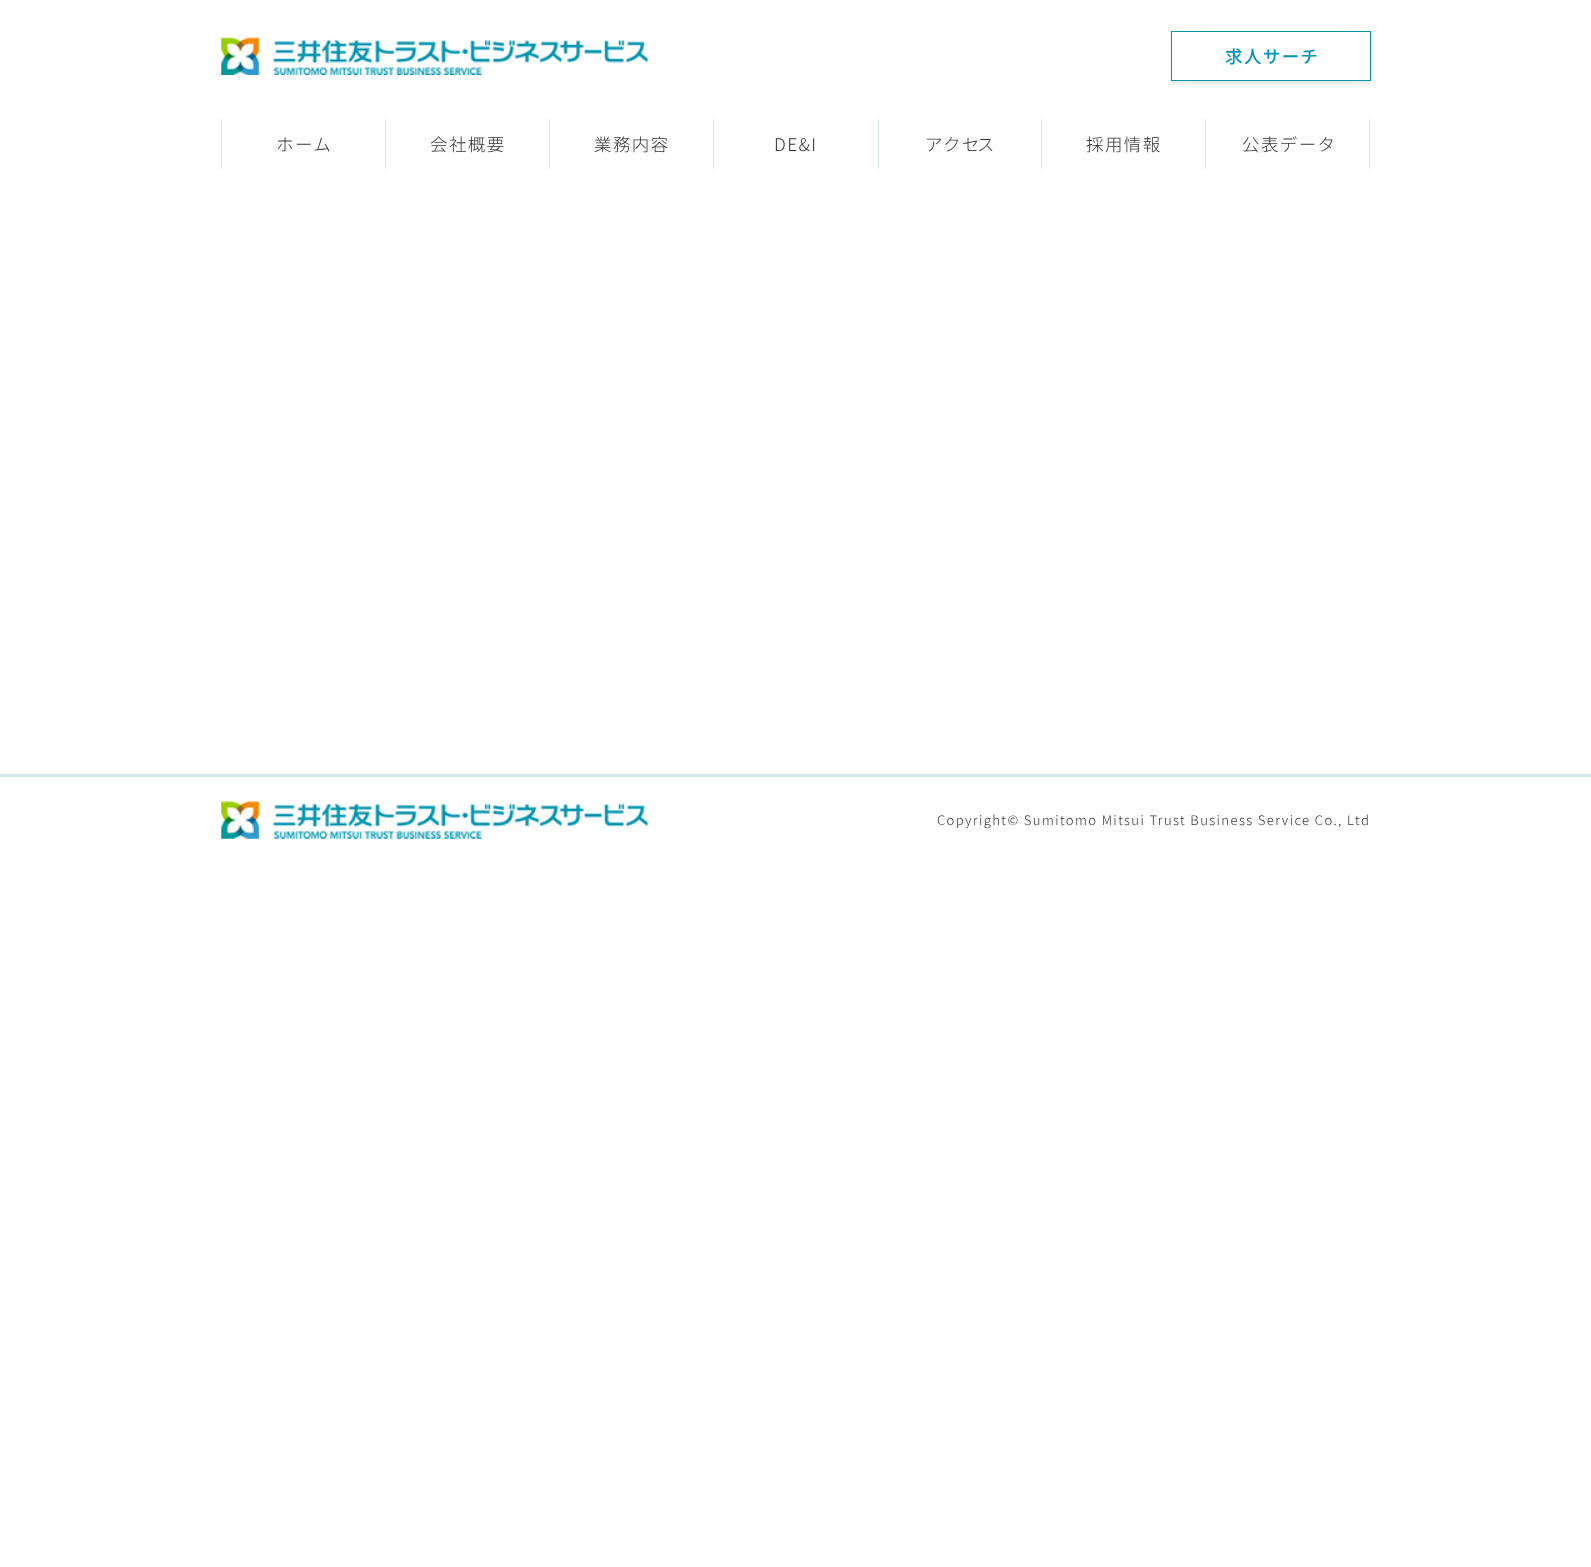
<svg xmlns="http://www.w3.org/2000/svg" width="1591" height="1567">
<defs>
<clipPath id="clip1"><path d="M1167 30h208v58h-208zm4 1h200v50h-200z" clip-rule="evenodd"/></clipPath>
</defs>
<rect width="100%" height="100%" fill="#fff"/>
<image x="221" y="37" width="427" height="38" href="media/1.png"/>
<g clip-path="url(#clip1)">
<rect x="1171" y="34" width="200" height="50" fill="#00000014" filter="blur(1px)"/>
</g>
<rect x="1171.5" y="31.5" width="199" height="49" fill="none" stroke="#0096ae"/>
<text x="1225" y="63" style="font-family:Noto Sans JP;font-size:17.5px;font-weight:500;letter-spacing:1.4px;fill:#0096ae">求人サーチ</text>
<rect x="385" y="119" width="1" height="50" fill="#d1ece8"/>
<rect x="221" y="119" width="1" height="50" fill="#d1ece8"/>
<text x="276" y="151" style="font-family:Noto Sans JP;font-size:17.5px;font-weight:300;letter-spacing:1.4px;fill:#333">ホーム</text>
<rect x="549" y="119" width="1" height="50" fill="#d1ece8"/>
<text x="430" y="151" style="font-family:Noto Sans JP;font-size:17.5px;font-weight:300;letter-spacing:1.4px;fill:#333">会社概要</text>
<rect x="713" y="119" width="1" height="50" fill="#d1ece8"/>
<text x="594" y="151" style="font-family:Noto Sans JP;font-size:17.5px;font-weight:300;letter-spacing:1.4px;fill:#333">業務内容</text>
<rect x="878" y="119" width="1" height="50" fill="#d1ece8"/>
<text x="774" y="151" style="font-family:Noto Sans JP;font-size:17.5px;font-weight:300;letter-spacing:1.4px;fill:#333">DE&amp;I</text>
<rect x="1041" y="119" width="1" height="50" fill="#d1ece8"/>
<text x="925" y="151" style="font-family:Noto Sans JP;font-size:17.5px;font-weight:300;letter-spacing:1.4px;fill:#333">アクセ</text>
<text x="977" y="151" style="font-family:Noto Sans JP;font-size:17.5px;font-weight:300;letter-spacing:1.4px;fill:#333">ス</text>
<rect x="1205" y="119" width="1" height="50" fill="#d1ece8"/>
<text x="1086" y="151" style="font-family:Noto Sans JP;font-size:17.5px;font-weight:300;letter-spacing:1.4px;fill:#333">採用情報</text>
<rect x="1369" y="119" width="1" height="50" fill="#d1ece8"/>
<text x="1242" y="151" style="font-family:Noto Sans JP;font-size:17.5px;font-weight:300;letter-spacing:1.4px;fill:#333">公表データ</text>
<rect y="774" width="1591" height="3" fill="#d1ece8"/>
<image x="221" y="801" width="427" height="38" href="media/2.png"/>
<text x="937" y="825" style="font-family:Noto Sans JP;font-size:13.1px;font-weight:300;letter-spacing:1.4px;fill:#333">Copyright© Sumitomo Mitsui Trust Business Service Co., Ltd</text>
</svg>
